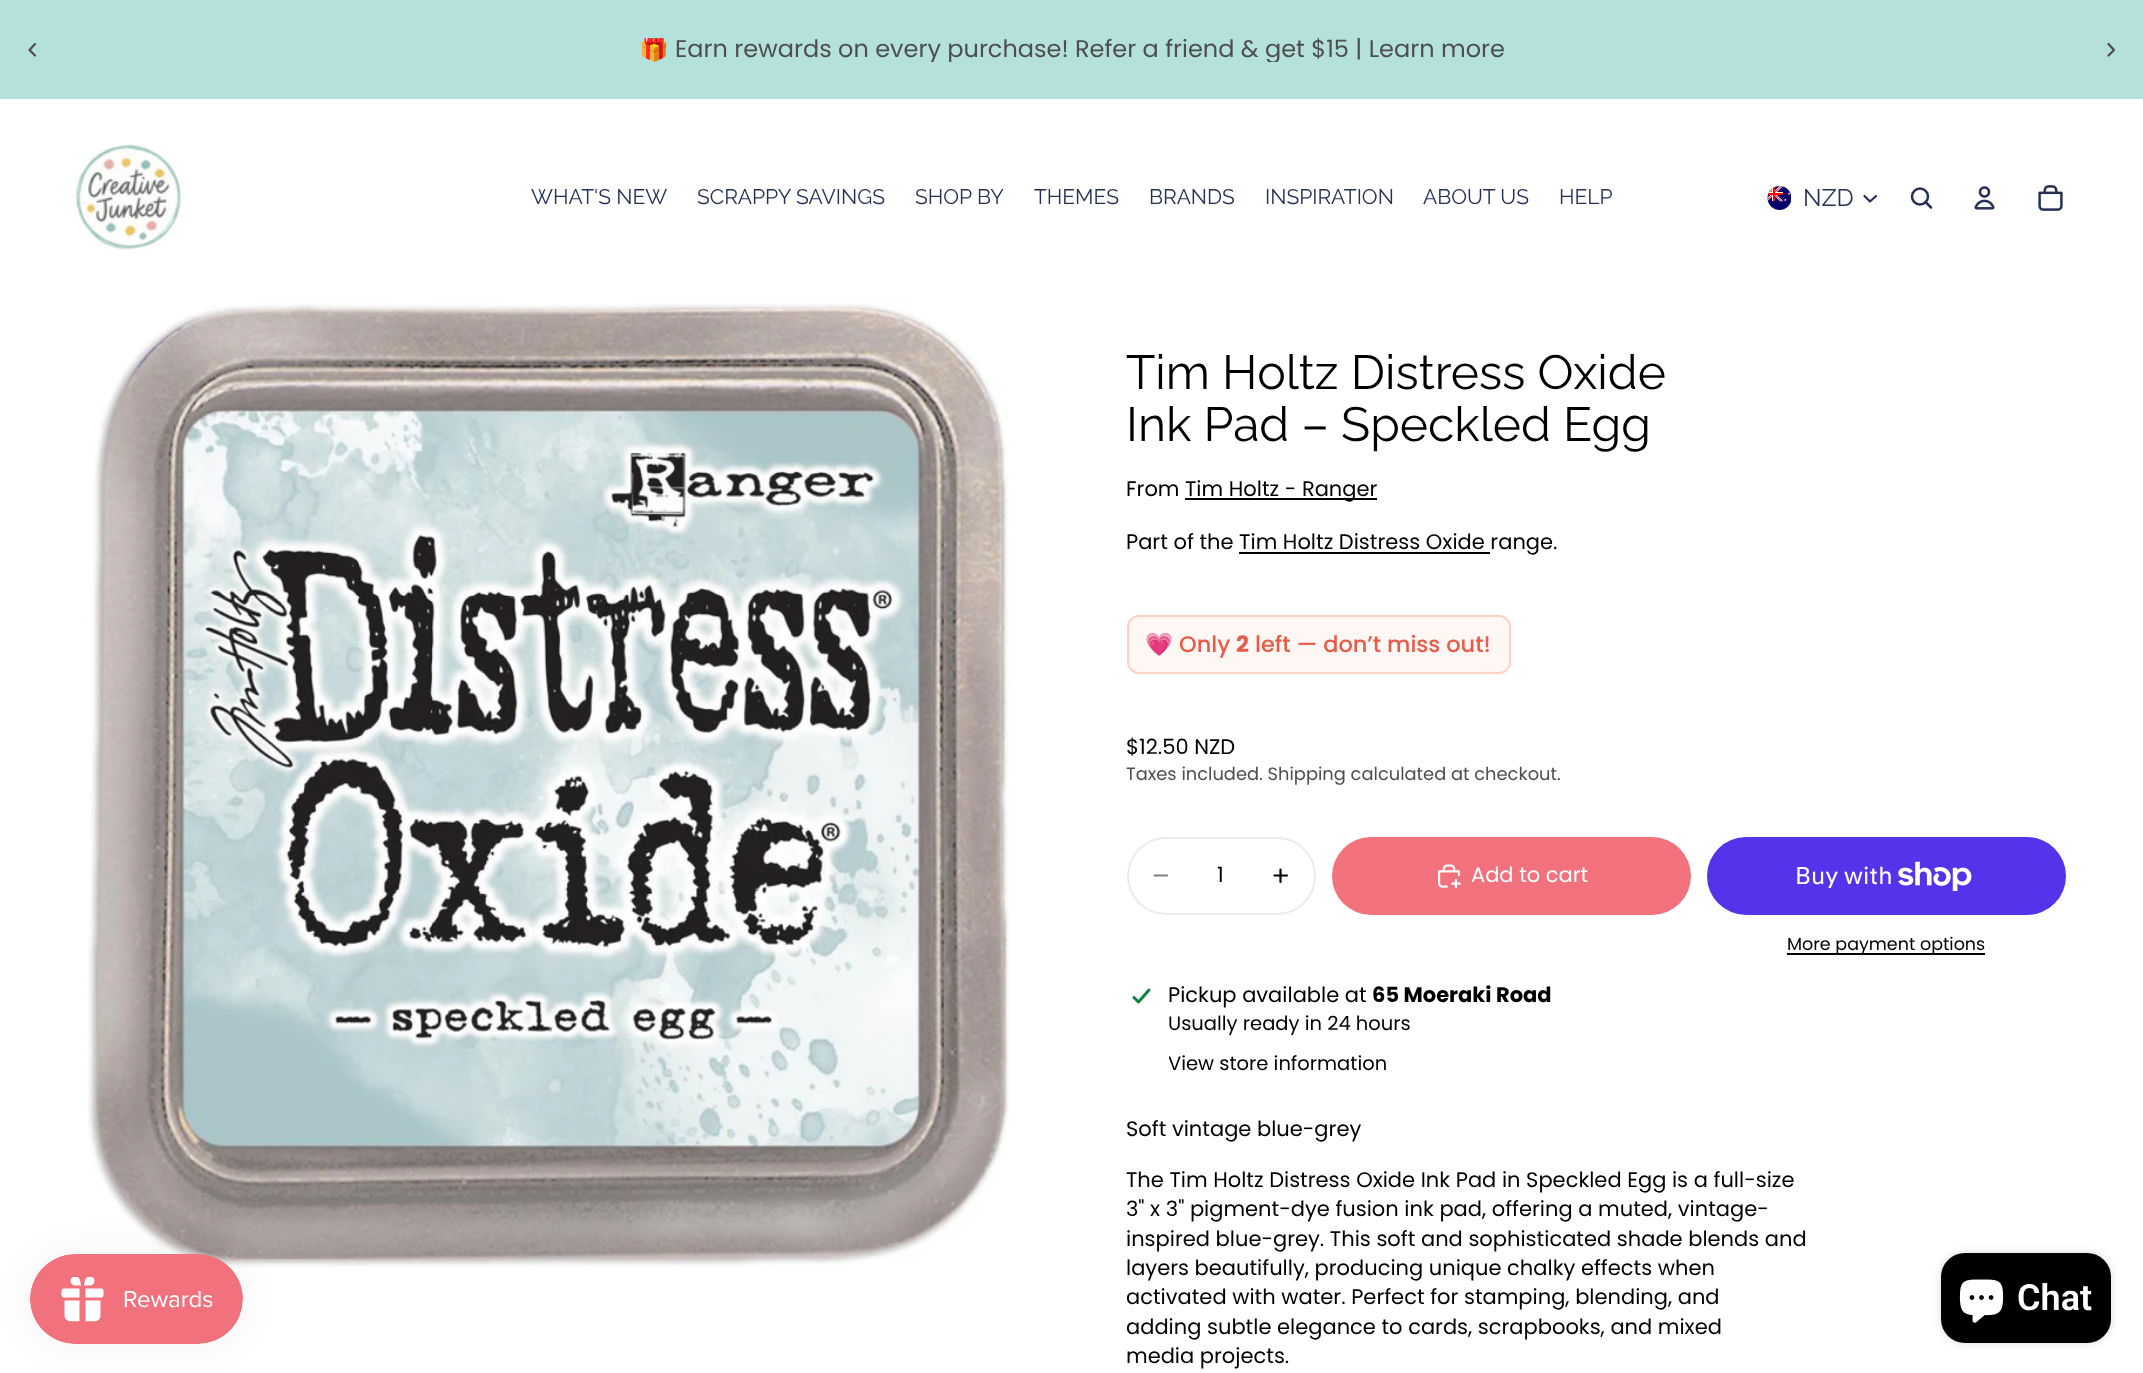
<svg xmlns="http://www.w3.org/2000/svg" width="2143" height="1373">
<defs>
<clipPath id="clip1"><rect x="563" y="38" width="1020" height="24"/></clipPath>
<clipPath id="clip2"><rect x="1169" y="1050" width="219" height="30"/></clipPath>
</defs>
<rect width="100%" height="100%" fill="#fff"/>
<rect width="2143" height="99" fill="#b4e1dc"/>
<g clip-path="url(#clip1)">
<text x="639" y="57" style="font-family:Noto Color Emoji;font-size:24px;fill:#4e4e4e">🎁</text>
<text x="675" y="57" style="font-family:Poppins;font-size:24px;fill:#4e4e4e">Earn rewards on every purchase! Refer a friend &amp; get $15 | Learn more</text>
</g>
<path d="M35 44l-5.5 6l5.5 5.5" fill="none" stroke="#4e4e4e" stroke-width="2.2" stroke-linecap="round" stroke-linejoin="round"/>
<path d="M2108.5 44l5.5 6l-5.5 5.5" fill="none" stroke="#4e4e4e" stroke-width="2.2" stroke-linecap="round" stroke-linejoin="round"/>
<image x="75" y="144" width="107" height="106" href="media/1.png"/>
<text x="531" y="204" style="font-family:Raleway;font-size:21px;fill:#263057">WHAT'S NEW</text>
<text x="697" y="204" style="font-family:Raleway;font-size:21px;fill:#263057">SCRAPPY SAVINGS</text>
<text x="915" y="204" style="font-family:Raleway;font-size:21px;fill:#263057">SHOP BY</text>
<text x="1034" y="204" style="font-family:Raleway;font-size:21px;fill:#263057">THEMES</text>
<text x="1149" y="204" style="font-family:Raleway;font-size:21px;fill:#263057">BRANDS</text>
<text x="1265" y="204" style="font-family:Raleway;font-size:21px;fill:#263057">INSPIRATION</text>
<text x="1423" y="204" style="font-family:Raleway;font-size:21px;fill:#263057">ABOUT US</text>
<text x="1559" y="204" style="font-family:Raleway;font-size:21px;fill:#263057">HELP</text>
<image x="1767" y="186" width="24" height="24" href="media/2.png"/>
<text x="1803" y="206" style="font-family:Raleway;font-size:24px;fill:#263057">NZD</text>
<path d="M1876 196l-6 5.5l-5.5-5.5" fill="none" stroke="#263057" stroke-width="2.2" stroke-linecap="round" stroke-linejoin="round"/>
<circle cx="1920" cy="196.5" r="8" fill="none" stroke="#263057" stroke-width="2.5"/>
<path d="M1925.5 202l5.5 5.5" fill="none" stroke="#263057" stroke-width="2.5" stroke-linecap="round" stroke-linejoin="round"/>
<image x="1974" y="186" width="21" height="24" href="media/3.png"/>
<image x="2038" y="185" width="25" height="26" href="media/4.png"/>
<image x="87" y="297" width="923" height="971" href="media/6.png"/>
<rect x="30" y="1254" width="213" height="90" rx="45" fill="#0000000d" filter="blur(19px)"/>
<image x="30" y="1254" width="213" height="90" href="media/5.png"/>
<text x="1126" y="389" style="font-family:Raleway;font-size:48px;fill:#000">Tim Holtz Distress Oxide</text>
<text x="1126" y="441" style="font-family:Raleway;font-size:48px;fill:#000">Ink Pad – Speckled Egg</text>
<text x="1126" y="496" style="font-family:Poppins;font-size:21px;fill:#000">From</text>
<rect x="1185" y="498" width="192" height="2" fill="#000"/>
<text x="1185" y="496" style="font-family:Poppins;font-size:21px;fill:#000">Tim Holtz - Ranger</text>
<text x="1126" y="549" style="font-family:Poppins;font-size:21px;fill:#000">Part of the Tim Holtz Distress Oxide range.</text>
<rect x="1239" y="552" width="251" height="2" fill="#000"/>
<rect x="1128" y="616" width="382" height="57" rx="11" fill="#fff7f3" stroke="#ffd1c4" stroke-width="2"/>
<text x="1145" y="652" style="font-family:Noto Color Emoji;font-size:22.5px;fill:#e85b48">💗</text>
<text x="1179" y="652" style="font-family:Poppins;font-size:22.5px;font-weight:500;fill:#e85b48">Only</text>
<text x="1236" y="652" style="font-family:Poppins;font-size:22.5px;font-weight:bold;fill:#e85b48">2</text>
<text x="1255" y="652" style="font-family:Poppins;font-size:22.5px;font-weight:500;fill:#e85b48">left — don’t miss out!</text>
<text x="1126" y="754" style="font-family:Poppins;font-size:21px;fill:#000">$12.50 NZD</text>
<text x="1126" y="780" style="font-family:Poppins;font-size:17.85px;fill:#4e4e4e">Taxes included. Shipping calculated at checkout.</text>
<rect x="1128" y="838" width="187" height="76" rx="38" fill="none" stroke="#ebebeb" stroke-width="2"/>
<path d="M1154.5 875.5h12.5" fill="none" stroke="#808080" stroke-width="2.2" stroke-linecap="round"/>
<text x="1217" y="882" style="font-family:Poppins;font-size:21px;fill:#000">1</text>
<path d="M1274.5 875.5h12.5m-6.5-6v12.5" fill="none" stroke="#000" stroke-width="2.2" stroke-linecap="round"/>
<rect x="1332" y="837" width="359" height="78" rx="39" fill="#f1727c"/>
<image x="1438" y="864" width="23" height="25" href="media/7.png"/>
<text x="1471" y="882" style="font-family:Poppins;font-size:21px;fill:#fff">Add to cart</text>
<rect x="1707" y="837" width="359" height="78" rx="39" fill="#5433eb"/>
<text x="1795" y="884" style="font-family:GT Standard;font-size:24px;fill:#fff">Buy with</text>
<image x="1898" y="861" width="74" height="30" href="media/8.png"/>
<rect x="1787" y="953" width="198" height="2" fill="#000"/>
<text x="1787" y="950" style="font-family:Poppins;font-size:17.5px;fill:#000">More payment options</text>
<image x="1132" y="988" width="19" height="16" href="media/9.png"/>
<text x="1168" y="1002" style="font-family:Poppins;font-size:21px;fill:#000">Pickup available at</text>
<text x="1372" y="1002" style="font-family:Poppins;font-size:21px;font-weight:bold;fill:#000">65 Moeraki Road</text>
<text x="1168" y="1030" style="font-family:Poppins;font-size:19.5px;fill:#000">Usually ready in 24 hours</text>
<g clip-path="url(#clip2)">
<text x="1168" y="1070" style="font-family:Poppins;font-size:19.5px;fill:#000">View store information</text>
</g>
<text x="1126" y="1136" style="font-family:Poppins;font-size:21px;fill:#000">Soft vintage blue-grey</text>
<text x="1126" y="1187" style="font-family:Poppins;font-size:21px;fill:#000">The Tim Holtz Distress Oxide Ink Pad in Speckled Egg is a full-size</text>
<text x="1126" y="1216" style="font-family:Poppins;font-size:21px;fill:#000">3" x 3" pigment-dye fusion ink pad, offering a muted, vintage-</text>
<text x="1126" y="1246" style="font-family:Poppins;font-size:21px;fill:#000">inspired blue-grey. This soft and sophisticated shade blends and</text>
<text x="1126" y="1275" style="font-family:Poppins;font-size:21px;fill:#000">layers beautifully, producing unique chalky effects when</text>
<text x="1126" y="1304" style="font-family:Poppins;font-size:21px;fill:#000">activated with water. Perfect for stamping, blending, and</text>
<text x="1126" y="1334" style="font-family:Poppins;font-size:21px;fill:#000">adding subtle elegance to cards, scrapbooks, and mixed</text>
<text x="1126" y="1363" style="font-family:Poppins;font-size:21px;fill:#000">media projects.</text>
<rect x="1941" y="1253" width="170" height="90" rx="24" fill="#00000026" filter="blur(4px)"/>
<rect x="1941" y="1253" width="170" height="90" rx="24" fill="#000"/>
<image x="1959" y="1279" width="45" height="44" href="media/10.png"/>
<text x="2017" y="1310" style="font-family:Roboto;font-size:36px;font-weight:600;fill:#fff">Chat</text>
</svg>
